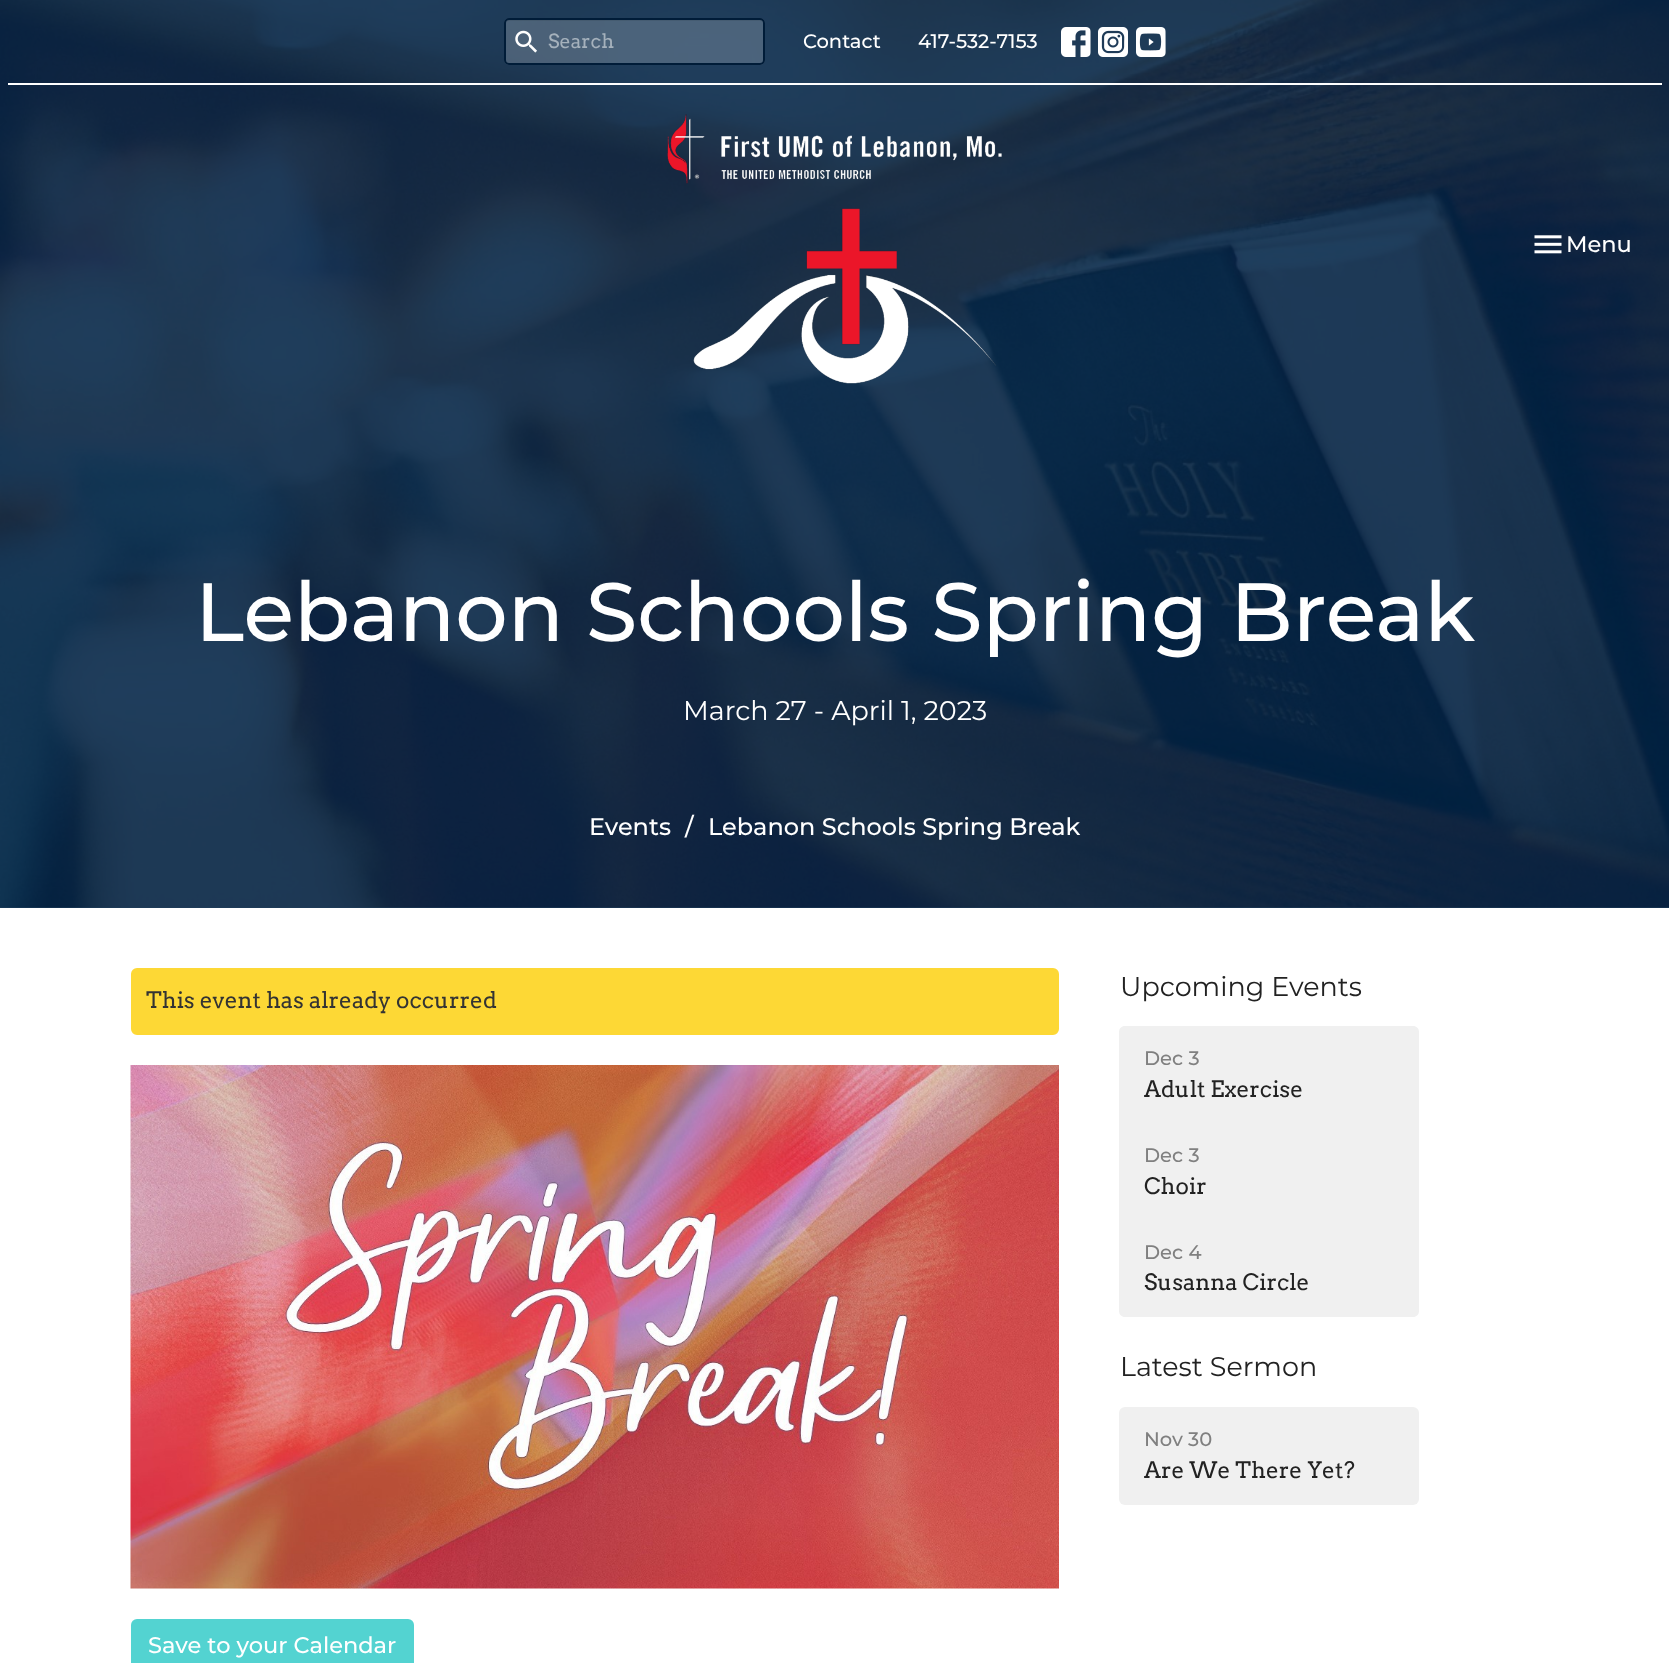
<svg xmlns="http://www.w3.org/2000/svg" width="1669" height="1663">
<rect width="100%" height="100%" fill="#fff"/>
<rect y="907" width="1669" height="1" fill="#1f3e5d"/>
<image x="0" y="0" width="1669" height="908" href="media/7.png"/>
<rect x="8" y="83" width="1654" height="2" fill="#fff"/>
<rect x="504" y="18" width="261" height="47" rx="5" fill="#ffffff33"/>
<path d="M508 21h252c2 0 4 1 4 3v-1c0-2-1-3-3-3h-252c-2 0-3 1-3 3v1c0-2 1-3 2-3z" fill="#00000012"/>
<rect x="505" y="19" width="259" height="45" rx="4" fill="none" stroke="#001c38" stroke-width="2"/>
<image x="515" y="30" width="22" height="23" href="media/1.png"/>
<text x="548" y="48" style="font-family:Arvo;font-size:19.5px;fill:#a5b1bc">Search</text>
<text x="803" y="48" style="font-family:Montserrat;font-size:19.5px;font-weight:500;fill:#fff">Contact</text>
<text x="918" y="48" style="font-family:Montserrat;font-size:19.5px;font-weight:500;fill:#fff">417-532-7153</text>
<image x="1061" y="27" width="30" height="30" href="media/2.png"/>
<image x="1098" y="27" width="30" height="30" href="media/3.png"/>
<image x="1136" y="27" width="30" height="30" href="media/4.png"/>
<image x="667" y="114" width="335" height="270" href="media/5.png"/>
<image x="1534" y="235" width="28" height="19" href="media/6.png"/>
<text x="1566" y="252" style="font-family:Montserrat;font-size:22.5px;font-weight:500;fill:#fff">Menu</text>
<text x="195" y="641" style="font-family:Montserrat;font-size:82.5px;font-weight:500;fill:#fff">Lebanon Schools Spring Break</text>
<text x="683" y="720" style="font-family:Montserrat;font-size:27px;fill:#fff">March 27 - April 1, 2023</text>
<text x="589" y="835" style="font-family:Montserrat;font-size:24px;font-weight:500;fill:#fff">Events</text>
<text x="685" y="835" style="font-family:Montserrat;font-size:24px;font-weight:500;fill:#fff">/</text>
<text x="708" y="835" style="font-family:Montserrat;font-size:24px;font-weight:500;fill:#fff">Lebanon Schools Spring Break</text>
<rect x="132" y="969" width="926" height="65" rx="5" fill="#fdd835" stroke="#fdd835" stroke-width="2"/>
<text x="146" y="1008" style="font-family:Arvo;font-size:22.5px;fill:#333">This event has already occurred</text>
<image x="130" y="1065" width="929" height="524" href="media/8.png"/>
<rect x="131" y="1619" width="283" height="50" rx="6" fill="#53d3d1"/>
<text x="148" y="1653" style="font-family:Montserrat;font-size:22.5px;font-weight:500;fill:#fff">Save to your Calendar</text>
<text x="1120" y="996" style="font-family:Montserrat;font-size:27px;fill:#222">Upcoming Events</text>
<path d="M1125 1026h288c3.5 0 6 2.5 6 6v93h-300v-93c0-3.5 2.5-6 6-6z" fill="#f0f0f0"/>
<text x="1144" y="1065" style="font-family:Montserrat;font-size:19.5px;font-weight:500;fill:#808080">Dec 3</text>
<text x="1144" y="1097" style="font-family:Arvo;font-size:22.5px;fill:#222">Adult Exercise</text>
<rect x="1119" y="1125" width="300" height="95" fill="#f0f0f0"/>
<text x="1144" y="1162" style="font-family:Montserrat;font-size:19.5px;font-weight:500;fill:#808080">Dec 3</text>
<text x="1144" y="1194" style="font-family:Arvo;font-size:22.5px;fill:#222">Choir</text>
<path d="M1119 1220h300v91c0 3.5-2.5 6-6 6h-288c-3.5 0-6-2.5-6-6z" fill="#f0f0f0"/>
<text x="1144" y="1259" style="font-family:Montserrat;font-size:19.5px;font-weight:500;fill:#808080">Dec 4</text>
<text x="1144" y="1290" style="font-family:Arvo;font-size:22.5px;fill:#222">Susanna Circle</text>
<text x="1120" y="1376" style="font-family:Montserrat;font-size:27px;fill:#222">Latest Sermon</text>
<rect x="1119" y="1407" width="300" height="98" rx="6" fill="#f0f0f0"/>
<text x="1144" y="1446" style="font-family:Montserrat;font-size:19.5px;font-weight:500;fill:#808080">Nov 30</text>
<text x="1144" y="1478" style="font-family:Arvo;font-size:22.5px;fill:#222">Are We There Yet?</text>
</svg>
